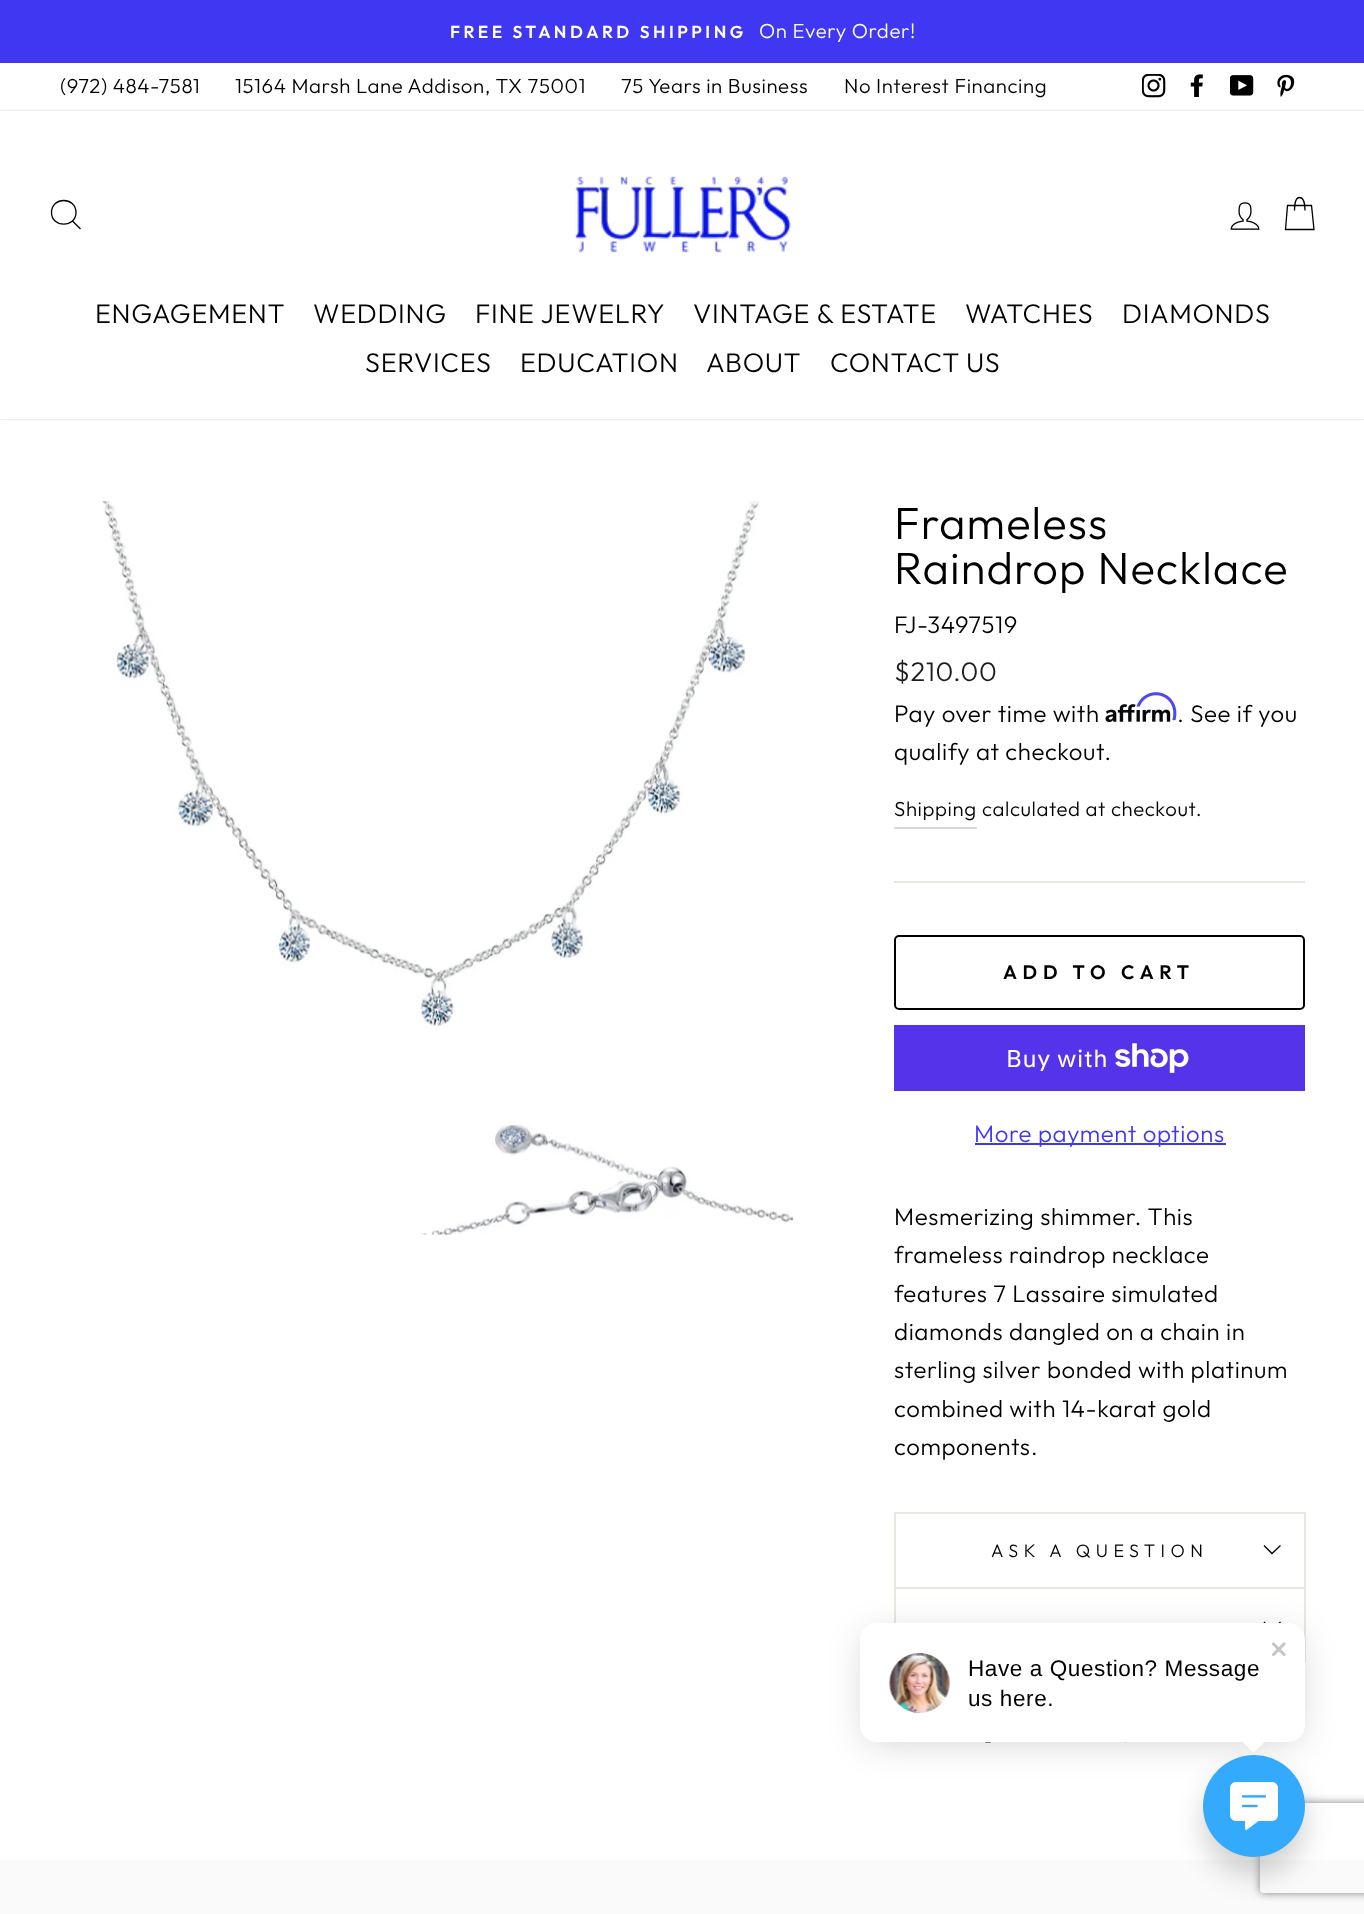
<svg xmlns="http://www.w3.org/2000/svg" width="1364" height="1914">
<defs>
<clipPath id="clip1"><path d="M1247 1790h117v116h-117zm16 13h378c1.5 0 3 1.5 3 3v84c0 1.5-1.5 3-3 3h-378c-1.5 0-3-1.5-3-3v-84c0-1.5 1.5-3 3-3z" clip-rule="evenodd"/></clipPath>
</defs>
<rect width="100%" height="100%" fill="#fff"/>
<rect width="1364" height="63" fill="#4037f3"/>
<text x="450" y="38" style="font-family:Outfit;font-size:17.3px;font-weight:600;letter-spacing:3.5px;fill:#fff">FREE STANDARD SHIPPING</text>
<text x="759" y="38" style="font-family:Outfit;font-size:20.4px;font-weight:300;letter-spacing:0.6px;fill:#fff">On Every Order!</text>
<text x="60" y="93" style="font-family:Outfit;font-size:20.4px;font-weight:300;letter-spacing:0.6px;fill:#000">(972) 484-7581</text>
<text x="235" y="93" style="font-family:Outfit;font-size:20.4px;font-weight:300;letter-spacing:0.6px;fill:#000">15164 Marsh Lane Addison, TX 75001</text>
<text x="621" y="93" style="font-family:Outfit;font-size:20.4px;font-weight:300;letter-spacing:0.6px;fill:#000">75 Years in Business</text>
<text x="844" y="93" style="font-family:Outfit;font-size:20.4px;font-weight:300;letter-spacing:0.6px;fill:#000">No Interest Financing</text>
<image x="1142" y="74" width="24" height="24" href="media/1.png"/>
<image x="1190" y="74" width="13" height="23" href="media/2.png"/>
<image x="1230" y="75" width="24" height="21" href="media/3.png"/>
<image x="1277" y="74" width="18" height="23" href="media/4.png"/>
<rect y="111" width="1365" height="308" fill="#00000033" filter="blur(1px)"/>
<rect y="111" width="1364" height="308" fill="#fff"/>
<path d="M76 212.5c0 15.5-24.5 15.5-24.5 0c0-16 24.5-16 24.5 0zm4.5 16.5l-8-8" fill="none" stroke="#000" stroke-width="1.3"/>
<image x="575" y="176" width="216" height="77" href="media/5.png"/>
<image x="1230" y="202" width="30" height="28" href="media/6.png"/>
<path d="M1294.5 210.5c0-10.5 2-13 5-13c3 0 5.5 2.5 5.5 13m-17.5-5h24l2.5 24h-28.5z" fill="none" stroke="#000" stroke-width="1.3"/>
<text x="95" y="323" style="font-family:Outfit;font-size:27px;font-weight:300;letter-spacing:0.7px;fill:#000">ENGAGEMENT</text>
<text x="313" y="323" style="font-family:Outfit;font-size:27px;font-weight:300;letter-spacing:0.7px;fill:#000">WEDDING</text>
<text x="475" y="323" style="font-family:Outfit;font-size:27px;font-weight:300;letter-spacing:0.7px;fill:#000">FINE JEWELRY</text>
<text x="693" y="323" style="font-family:Outfit;font-size:27px;font-weight:300;letter-spacing:0.7px;fill:#000">VINTAGE &amp; ESTATE</text>
<text x="965" y="323" style="font-family:Outfit;font-size:27px;font-weight:300;letter-spacing:0.7px;fill:#000">WATCHES</text>
<text x="1122" y="323" style="font-family:Outfit;font-size:27px;font-weight:300;letter-spacing:0.7px;fill:#000">DIAMONDS</text>
<text x="365" y="372" style="font-family:Outfit;font-size:27px;font-weight:300;letter-spacing:0.7px;fill:#000">SERVICES</text>
<text x="520" y="372" style="font-family:Outfit;font-size:27px;font-weight:300;letter-spacing:0.7px;fill:#000">EDUCATION</text>
<text x="706" y="372" style="font-family:Outfit;font-size:27px;font-weight:300;letter-spacing:0.7px;fill:#000">ABOUT</text>
<text x="830" y="372" style="font-family:Outfit;font-size:27px;font-weight:300;letter-spacing:0.7px;fill:#000">CONTACT US</text>
<image x="102" y="501" width="691" height="734" href="media/7.png"/>
<text x="894" y="539" style="font-family:Outfit;font-size:45.25px;font-weight:300;letter-spacing:1.1px;fill:#000">Frameless</text>
<text x="894" y="584" style="font-family:Outfit;font-size:45.25px;font-weight:300;letter-spacing:1.1px;fill:#000">Raindrop Necklace</text>
<text x="894" y="633" style="font-family:Outfit;font-size:24px;font-weight:300;letter-spacing:0.6px;fill:#000">FJ-3497519</text>
<text x="894" y="681" style="font-family:Outfit;font-size:27px;font-weight:300;letter-spacing:0.6px;fill:#1c1d1d">$210.00</text>
<text x="894" y="722" style="font-family:Outfit;font-size:24px;font-weight:300;letter-spacing:0.6px;fill:#000">Pay over time with</text>
<image x="1105" y="704" width="66" height="18" href="media/9.png"/>
<image x="1136" y="692" width="41" height="29" href="media/8.png"/>
<text x="1177" y="722" style="font-family:Outfit;font-size:24px;font-weight:300;letter-spacing:0.6px;fill:#000">. See if you</text>
<text x="894" y="760" style="font-family:Outfit;font-size:24px;font-weight:300;letter-spacing:0.6px;fill:#000">qualify at checkout.</text>
<rect x="894" y="827" width="83" height="2" fill="#d9d9d9"/>
<text x="894" y="816" style="font-family:Outfit;font-size:20.4px;font-weight:300;letter-spacing:0.6px;fill:#000">Shipping</text>
<text x="982" y="816" style="font-family:Outfit;font-size:20.4px;font-weight:300;letter-spacing:0.6px;fill:#000">calculated at checkout.</text>
<rect x="894" y="881" width="411" height="2" fill="#e8e8e1"/>
<rect x="895" y="936" width="409" height="73" rx="4" fill="none" stroke="#000" stroke-width="2"/>
<text x="1003" y="979" style="font-family:Outfit;font-size:19.5px;font-weight:600;letter-spacing:5.8px;fill:#000">ADD TO CART</text>
<rect x="894" y="1025" width="411" height="66" fill="#5433eb"/>
<text x="1006" y="1067" style="font-family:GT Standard;font-size:24px;letter-spacing:0.6px;fill:#fff">Buy with</text>
<image x="1115" y="1043" width="74" height="30" href="media/10.png"/>
<rect x="975" y="1143" width="251" height="2" fill="#4037f3"/>
<text x="974" y="1142" style="font-family:Outfit;font-size:24px;font-weight:300;letter-spacing:0.6px;fill:#4037f3">More payment options</text>
<text x="894" y="1225" style="font-family:Outfit;font-size:24px;font-weight:300;letter-spacing:0.6px;fill:#000">Mesmerizing shimmer. This</text>
<text x="894" y="1263" style="font-family:Outfit;font-size:24px;font-weight:300;letter-spacing:0.6px;fill:#000">frameless raindrop necklace</text>
<text x="894" y="1302" style="font-family:Outfit;font-size:24px;font-weight:300;letter-spacing:0.6px;fill:#000">features 7 Lassaire simulated</text>
<text x="894" y="1340" style="font-family:Outfit;font-size:24px;font-weight:300;letter-spacing:0.6px;fill:#000">diamonds dangled on a chain in</text>
<text x="894" y="1378" style="font-family:Outfit;font-size:24px;font-weight:300;letter-spacing:0.6px;fill:#000">sterling silver bonded with platinum</text>
<text x="894" y="1417" style="font-family:Outfit;font-size:24px;font-weight:300;letter-spacing:0.6px;fill:#000">combined with 14-karat gold</text>
<text x="894" y="1455" style="font-family:Outfit;font-size:24px;font-weight:300;letter-spacing:0.6px;fill:#000">components.</text>
<rect x="894" y="1512" width="411" height="2" fill="#e8e8e1"/>
<rect x="1304" y="1512" width="2" height="75" fill="#e8e8e1"/>
<rect x="894" y="1512" width="2" height="75" fill="#e8e8e1"/>
<text x="991" y="1557" style="font-family:Outfit;font-size:18px;font-weight:300;letter-spacing:5.4px;fill:#000">ASK A QUESTION</text>
<path d="M1264 1545.5l8 8l8.5-8" fill="none" stroke="#000" stroke-width="1.3"/>
<rect x="894" y="1587" width="411" height="2" fill="#e8e8e1"/>
<rect x="1304" y="1587" width="2" height="75" fill="#e8e8e1"/>
<rect x="894" y="1587" width="2" height="36" fill="#e8e8e1"/>
<path d="M1264 1622l8 8l8.5-8" fill="none" stroke="#000" stroke-width="1.3"/>
<image x="985" y="1742" width="6" height="1" href="media/11.png"/>
<image x="1125" y="1742" width="1" height="1" href="media/12.png"/>
<rect y="1860" width="1364" height="54" fill="#fafafa"/>
<rect x="866" y="1635" width="433" height="107" rx="11" fill="#0000002e" filter="blur(18px)"/>
<rect x="860" y="1623" width="445" height="119" rx="17" fill="#fff"/>
<image x="1271" y="1642" width="15" height="15" href="media/13.png"/>
<image x="889" y="1653" width="61" height="60" href="media/14.png"/>
<text x="968" y="1676" style="font-family:Liberation Sans;font-size:22.5px;letter-spacing:0.6px;fill:#000">Have a Question? Message</text>
<text x="968" y="1706" style="font-family:Liberation Sans;font-size:22.5px;letter-spacing:0.6px;fill:#000">us here.</text>
<path d="M1237.5 1737l11.5 11.5c4.5 4.5 5 4.5 9 0l11.5-11.5z" fill="#fff" fill-rule="evenodd"/>
<rect x="1203" y="1773" width="102" height="102" rx="51" fill="#0000002e" filter="blur(14px)"/>
<g clip-path="url(#clip1)">
<rect x="1260" y="1803" width="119" height="90" rx="3" fill="#808080" filter="blur(4px)"/>
</g>
<circle cx="1254" cy="1806" r="51" fill="#33aafc"/>
<image x="1230" y="1782" width="48" height="48" href="media/15.png"/>
</svg>
